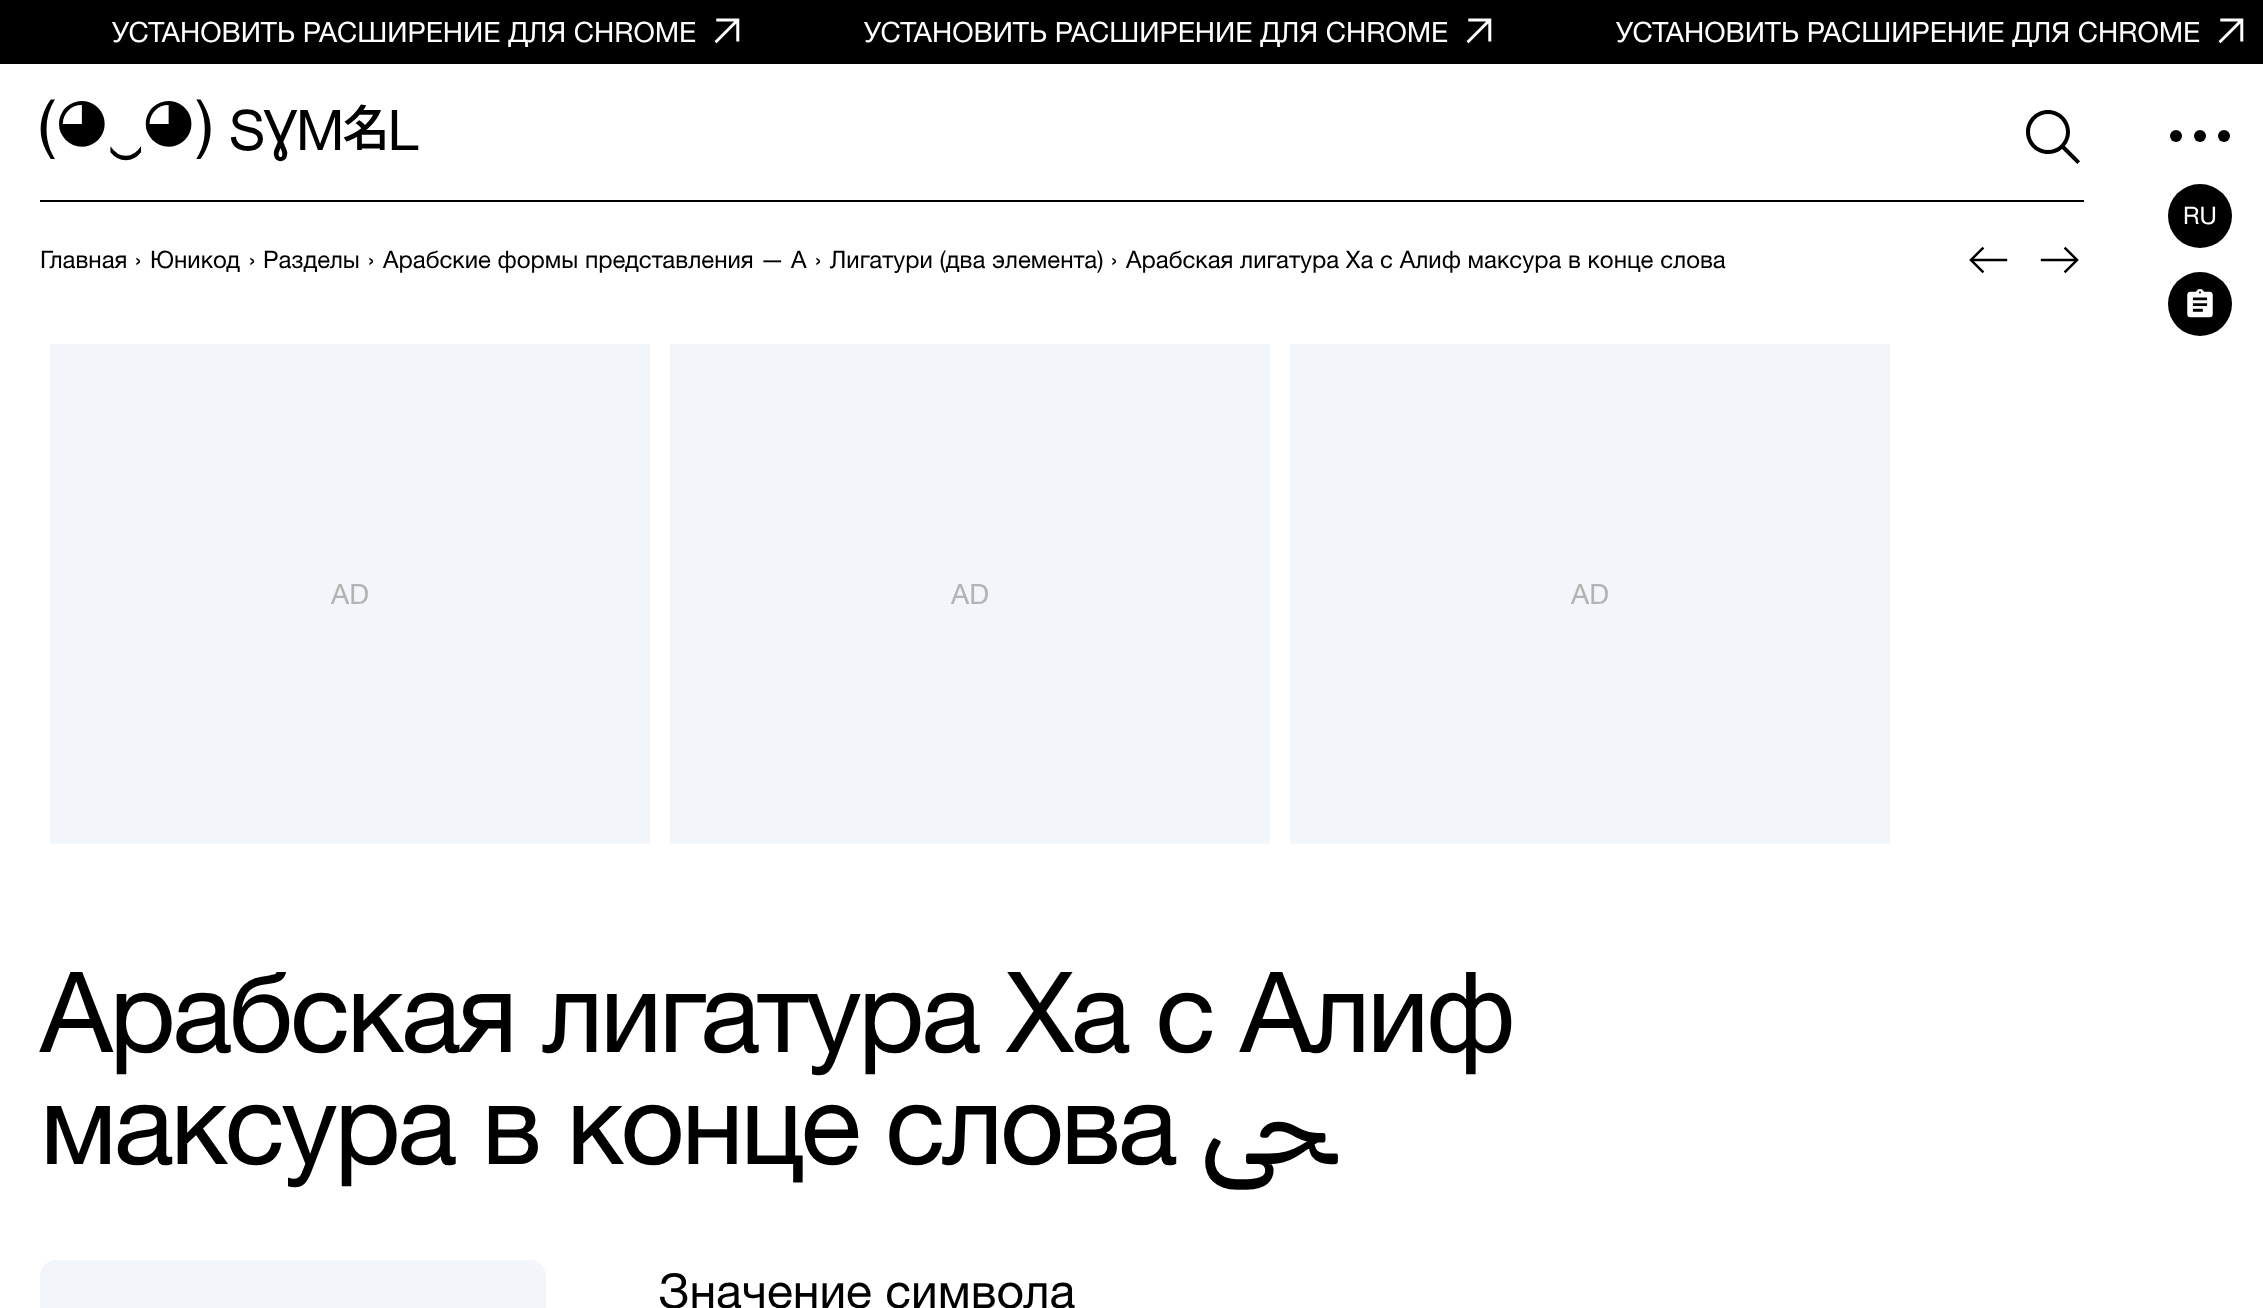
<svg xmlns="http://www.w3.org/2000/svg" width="2263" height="1308">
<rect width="100%" height="100%" fill="#fff"/>
<rect width="2263" height="64" fill="#000"/>
<text x="112" y="42" style="font-family:'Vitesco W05';font-size:28px;fill:#fff">УСТАНОВИТЬ РАСШИРЕНИЕ ДЛЯ CHROME</text>
<image x="714" y="18" width="26" height="26" href="media/1.png"/>
<text x="864" y="42" style="font-family:'Vitesco W05';font-size:28px;fill:#fff">УСТАНОВИТЬ РАСШИРЕНИЕ ДЛЯ CHROME</text>
<image x="1466" y="18" width="26" height="26" href="media/1.png"/>
<text x="1616" y="42" style="font-family:'Vitesco W05';font-size:28px;fill:#fff">УСТАНОВИТЬ РАСШИРЕНИЕ ДЛЯ CHROME</text>
<image x="2218" y="18" width="26" height="26" href="media/2.png"/>
<rect x="40" y="200" width="2044" height="2" fill="#000"/>
<text x="40" y="152" style="font-family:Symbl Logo;font-size:64px;fill:#000">(◕‿◕)</text>
<text x="229" y="150" style="font-family:Symbl Logo;font-size:56px;fill:#000">SYMBL</text>
<image x="2026" y="110" width="54" height="54" href="media/3.png"/>
<text x="40" y="268" style="font-family:'Vitesco W05';font-size:24px;fill:#000">Главная</text>
<text x="135" y="268" style="font-family:'Vitesco W05';font-size:24px;fill:#000">›</text>
<text x="150" y="268" style="font-family:'Vitesco W05';font-size:24px;fill:#000">Юникод</text>
<text x="249" y="268" style="font-family:'Vitesco W05';font-size:24px;fill:#000">›</text>
<text x="263" y="268" style="font-family:'Vitesco W05';font-size:24px;fill:#000">Разделы</text>
<text x="368" y="268" style="font-family:'Vitesco W05';font-size:24px;fill:#000">›</text>
<text x="383" y="268" style="font-family:'Vitesco W05';font-size:24px;fill:#000">Арабские формы представления — A</text>
<text x="815" y="268" style="font-family:'Vitesco W05';font-size:24px;fill:#000">›</text>
<text x="830" y="268" style="font-family:'Vitesco W05';font-size:24px;fill:#000">Лигатури (два элемента)</text>
<text x="1111" y="268" style="font-family:'Vitesco W05';font-size:24px;fill:#000">›</text>
<text x="1126" y="268" style="font-family:'Vitesco W05';font-size:24px;fill:#000">Арабская лигатура Ха с Алиф максура в конце слова</text>
<image x="1969" y="246" width="39" height="28" href="media/4.png"/>
<image x="2040" y="246" width="39" height="28" href="media/5.png"/>
<rect x="50" y="344" width="600" height="500" fill="#f2f5fa"/>
<text x="331" y="604" style="font-family:'Vitesco W05';font-size:28px;fill:#b3b3b3">AD</text>
<rect x="670" y="344" width="600" height="500" fill="#f2f5fa"/>
<text x="951" y="604" style="font-family:'Vitesco W05';font-size:28px;fill:#b3b3b3">AD</text>
<rect x="1290" y="344" width="600" height="500" fill="#f2f5fa"/>
<text x="1571" y="604" style="font-family:'Vitesco W05';font-size:28px;fill:#b3b3b3">AD</text>
<text x="40" y="1052" style="font-family:'Vitesco W05';font-size:112px;letter-spacing:-3.35px;fill:#000">Арабская лигатура Ха с Алиф</text>
<text x="40" y="1164" style="font-family:'Vitesco W05';font-size:112px;letter-spacing:-3.35px;fill:#000">максура в конце слова</text>
<text x="1335" y="1164" style="font-family:Rubik;font-size:112px;letter-spacing:-3.35px;direction:rtl;fill:#000">ﴛ</text>
<rect x="40" y="1260" width="506" height="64" rx="16" fill="#f2f5fa"/>
<text x="658" y="1308" style="font-family:'Vitesco W05';font-size:48px;fill:#000">Значение символа</text>
<image x="2170" y="130" width="12" height="12" href="media/6.png"/>
<image x="2194" y="130" width="12" height="12" href="media/6.png"/>
<image x="2218" y="130" width="12" height="12" href="media/6.png"/>
<circle cx="2200" cy="216" r="32" fill="#000"/>
<text x="2183" y="224" style="font-family:'Vitesco W05';font-size:24px;fill:#fff">RU</text>
<circle cx="2200" cy="304" r="32" fill="#000"/>
<image x="2187" y="289" width="26" height="29" href="media/7.png"/>
</svg>
